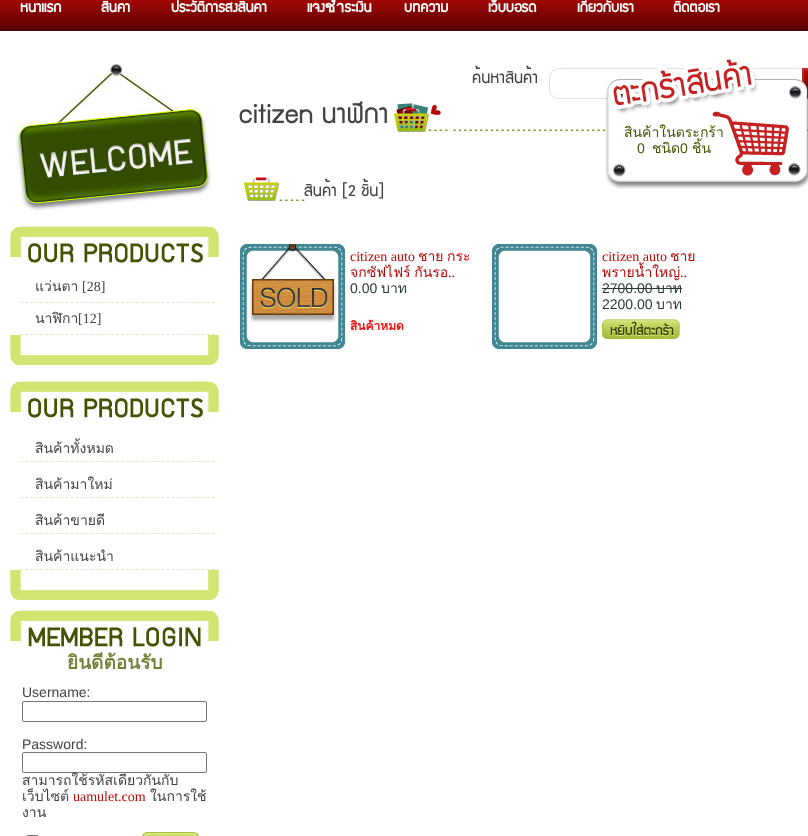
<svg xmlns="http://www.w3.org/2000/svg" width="808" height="836">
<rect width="100%" height="100%" fill="#fff"/>
<image x="0" y="0" width="808" height="31" href="media/1.png"/>
<text x="20" y="12" style="font-family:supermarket;font-size:16px;font-weight:bold;fill:#fff">หน้าแรก</text>
<text x="101" y="12" style="font-family:supermarket;font-size:16px;font-weight:bold;fill:#fff">สินค้า</text>
<text x="171" y="12" style="font-family:supermarket;font-size:16px;font-weight:bold;fill:#fff">ประวัติการส่งสินค้า</text>
<text x="307" y="12" style="font-family:supermarket;font-size:16px;font-weight:bold;fill:#fff">แจ้งชำระเงิน</text>
<text x="404" y="12" style="font-family:supermarket;font-size:16px;font-weight:bold;fill:#fff">บทความ</text>
<text x="488" y="12" style="font-family:supermarket;font-size:16px;font-weight:bold;fill:#fff">เว็บบอร์ด</text>
<text x="577" y="12" style="font-family:supermarket;font-size:16px;font-weight:bold;fill:#fff">เกี่ยวกับเรา</text>
<text x="673" y="12" style="font-family:supermarket;font-size:16px;font-weight:bold;fill:#fff">ติดต่อเรา</text>
<text x="472" y="83" style="font-family:supermarket;font-size:18px;fill:#434343">ค้นหาสินค้า</text>
<image x="548" y="68" width="251" height="31" href="media/2.png"/>
<image x="801" y="67" width="7" height="32" href="media/3.png"/>
<image x="450" y="129" width="358" height="2" href="media/4.png"/>
<text x="239" y="123" style="font-family:supermarket;font-size:30px;fill:#434343">citizen นาฬิกา</text>
<image x="389" y="103" width="61" height="29" href="media/5.png"/>
<image x="244" y="177" width="61" height="24" href="media/6.png"/>
<text x="304" y="196" style="font-family:supermarket;font-size:18px;fill:#434343">สินค้า [2 ชิ้น]</text>
<text x="350" y="330" style="font-family:Loma;font-size:12px;font-weight:bold;fill:#f00">สินค้าหมด</text>
<image x="240" y="244" width="105" height="105" href="media/7.png"/>
<image x="249" y="244" width="88" height="79" href="media/8.png"/>
<text x="350" y="261" style="font-family:Liberation Serif;font-size:14px;fill:#ba0808">citizen auto</text>
<text x="418" y="261" style="font-family:Loma;font-size:14px;fill:#ba0808">ชาย</text>
<text x="447" y="261" style="font-family:Loma;font-size:14px;fill:#ba0808">กระ</text>
<text x="350" y="277" word-spacing="-1" style="font-family:Loma;font-size:14px;fill:#ba0808">จกซัฟไฟร์ กันรอ</text>
<text x="448" y="277" style="font-family:Liberation Serif;font-size:14px;fill:#ba0808">..</text>
<text x="350" y="293" style="font-family:Liberation Sans;font-size:14px;fill:#2a383d">0.00</text>
<text x="381" y="293" style="font-family:Loma;font-size:14px;fill:#2a383d">บาท</text>
<image x="492" y="244" width="105" height="105" href="media/7.png"/>
<text x="602" y="261" style="font-family:Liberation Serif;font-size:14px;fill:#ba0808">citizen auto</text>
<text x="670" y="261" style="font-family:Loma;font-size:14px;fill:#ba0808">ชาย</text>
<text x="602" y="277" style="font-family:Loma;font-size:14px;fill:#ba0808">พรายน้ำใหญ่</text>
<text x="680" y="277" style="font-family:Liberation Serif;font-size:14px;fill:#ba0808">..</text>
<text x="602" y="293" style="font-family:Liberation Sans;font-size:14px;fill:#2a383d">2700.00</text>
<rect x="602" y="288" width="80" height="1" fill="#2a383d"/>
<text x="656" y="293" style="font-family:Loma;font-size:14px;fill:#2a383d">บาท</text>
<text x="602" y="309" style="font-family:Liberation Sans;font-size:14px;fill:#2a383d">2200.00</text>
<text x="656" y="309" style="font-family:Loma;font-size:14px;fill:#2a383d">บาท</text>
<image x="602" y="319" width="78" height="20" href="media/9.png"/>
<image x="16" y="64" width="195" height="147" href="media/10.png"/>
<image x="10" y="226" width="209" height="40" href="media/11.png"/>
<path d="M20 302.5h195" fill="none" stroke="#dde9c1" stroke-dasharray="3 2.05"/>
<text x="35" y="291" style="font-family:Loma;font-size:14px;fill:#434343">แว่นตา</text>
<text x="82" y="291" style="font-family:Liberation Serif;font-size:14px;fill:#434343">[28]</text>
<path d="M20 334.5h195" fill="none" stroke="#dde9c1" stroke-dasharray="3 2.05"/>
<text x="35" y="323" style="font-family:Loma;font-size:14px;fill:#434343">นาฬิกา</text>
<text x="78" y="323" style="font-family:Liberation Serif;font-size:14px;fill:#434343">[12]</text>
<image x="10" y="335" width="209" height="30" href="media/12.png"/>
<image x="10" y="381" width="209" height="40" href="media/11.png"/>
<path d="M20 461.5h195" fill="none" stroke="#dde9c1" stroke-dasharray="3 2.05"/>
<text x="35" y="453" style="font-family:Loma;font-size:14px;fill:#434343">สินค้าทั้งหมด</text>
<path d="M20 497.5h195" fill="none" stroke="#dde9c1" stroke-dasharray="3 2.05"/>
<text x="35" y="489" style="font-family:Loma;font-size:14px;fill:#434343">สินค้ามาใหม่</text>
<path d="M20 533.5h195" fill="none" stroke="#dde9c1" stroke-dasharray="3 2.05"/>
<text x="35" y="525" style="font-family:Loma;font-size:14px;fill:#434343">สินค้าขายดี</text>
<path d="M20 569.5h195" fill="none" stroke="#dde9c1" stroke-dasharray="3 2.05"/>
<text x="35" y="561" style="font-family:Loma;font-size:14px;fill:#434343">สินค้าแนะนำ</text>
<image x="10" y="570" width="209" height="30" href="media/12.png"/>
<image x="10" y="610" width="209" height="40" href="media/13.png"/>
<text x="67" y="669" style="font-family:Loma;font-size:19px;font-weight:bold;fill:#768138">ยินดีต้อนรับ</text>
<text x="22" y="697" style="font-family:Liberation Sans;font-size:14px;fill:#434343">Username:</text>
<rect x="22.5" y="701.5" width="184" height="20" rx="1.5" fill="none" stroke="#767676"/>
<text x="22" y="749" style="font-family:Liberation Sans;font-size:14px;fill:#434343">Password:</text>
<rect x="22.5" y="752.5" width="184" height="20" rx="1.5" fill="none" stroke="#767676"/>
<text x="22" y="785" style="font-family:Loma;font-size:14px;fill:#434343">สามารถใช้รหัสเดียวกันกับ</text>
<text x="22" y="801" style="font-family:Loma;font-size:14px;fill:#434343">เว็บไซต์</text>
<text x="73" y="801" style="font-family:Liberation Serif;font-size:14px;fill:#ba0808">uamulet.com</text>
<text x="150" y="801" style="font-family:Loma;font-size:14px;fill:#434343">ในการใช้</text>
<text x="22" y="817" style="font-family:Loma;font-size:14px;fill:#434343">งาน</text>
<image x="142" y="832" width="57" height="4" href="media/14.png"/>
<rect x="26.5" y="835.5" width="12" height="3" rx="1.5" fill="none" stroke="#767676"/>
<image x="605" y="59" width="203" height="130" href="media/15.png"/>
<text x="624" y="137" style="font-family:Loma;font-size:14px;fill:#465200">สินค้าในตระกร้า</text>
<text x="637" y="153" style="font-family:Liberation Sans;font-size:14px;fill:#465200">0</text>
<text x="652" y="153" style="font-family:Loma;font-size:14px;fill:#465200">ชนิด</text>
<text x="680" y="153" style="font-family:Liberation Sans;font-size:14px;fill:#465200">0</text>
<text x="692" y="153" style="font-family:Loma;font-size:14px;fill:#465200">ชิ้น</text>
</svg>
